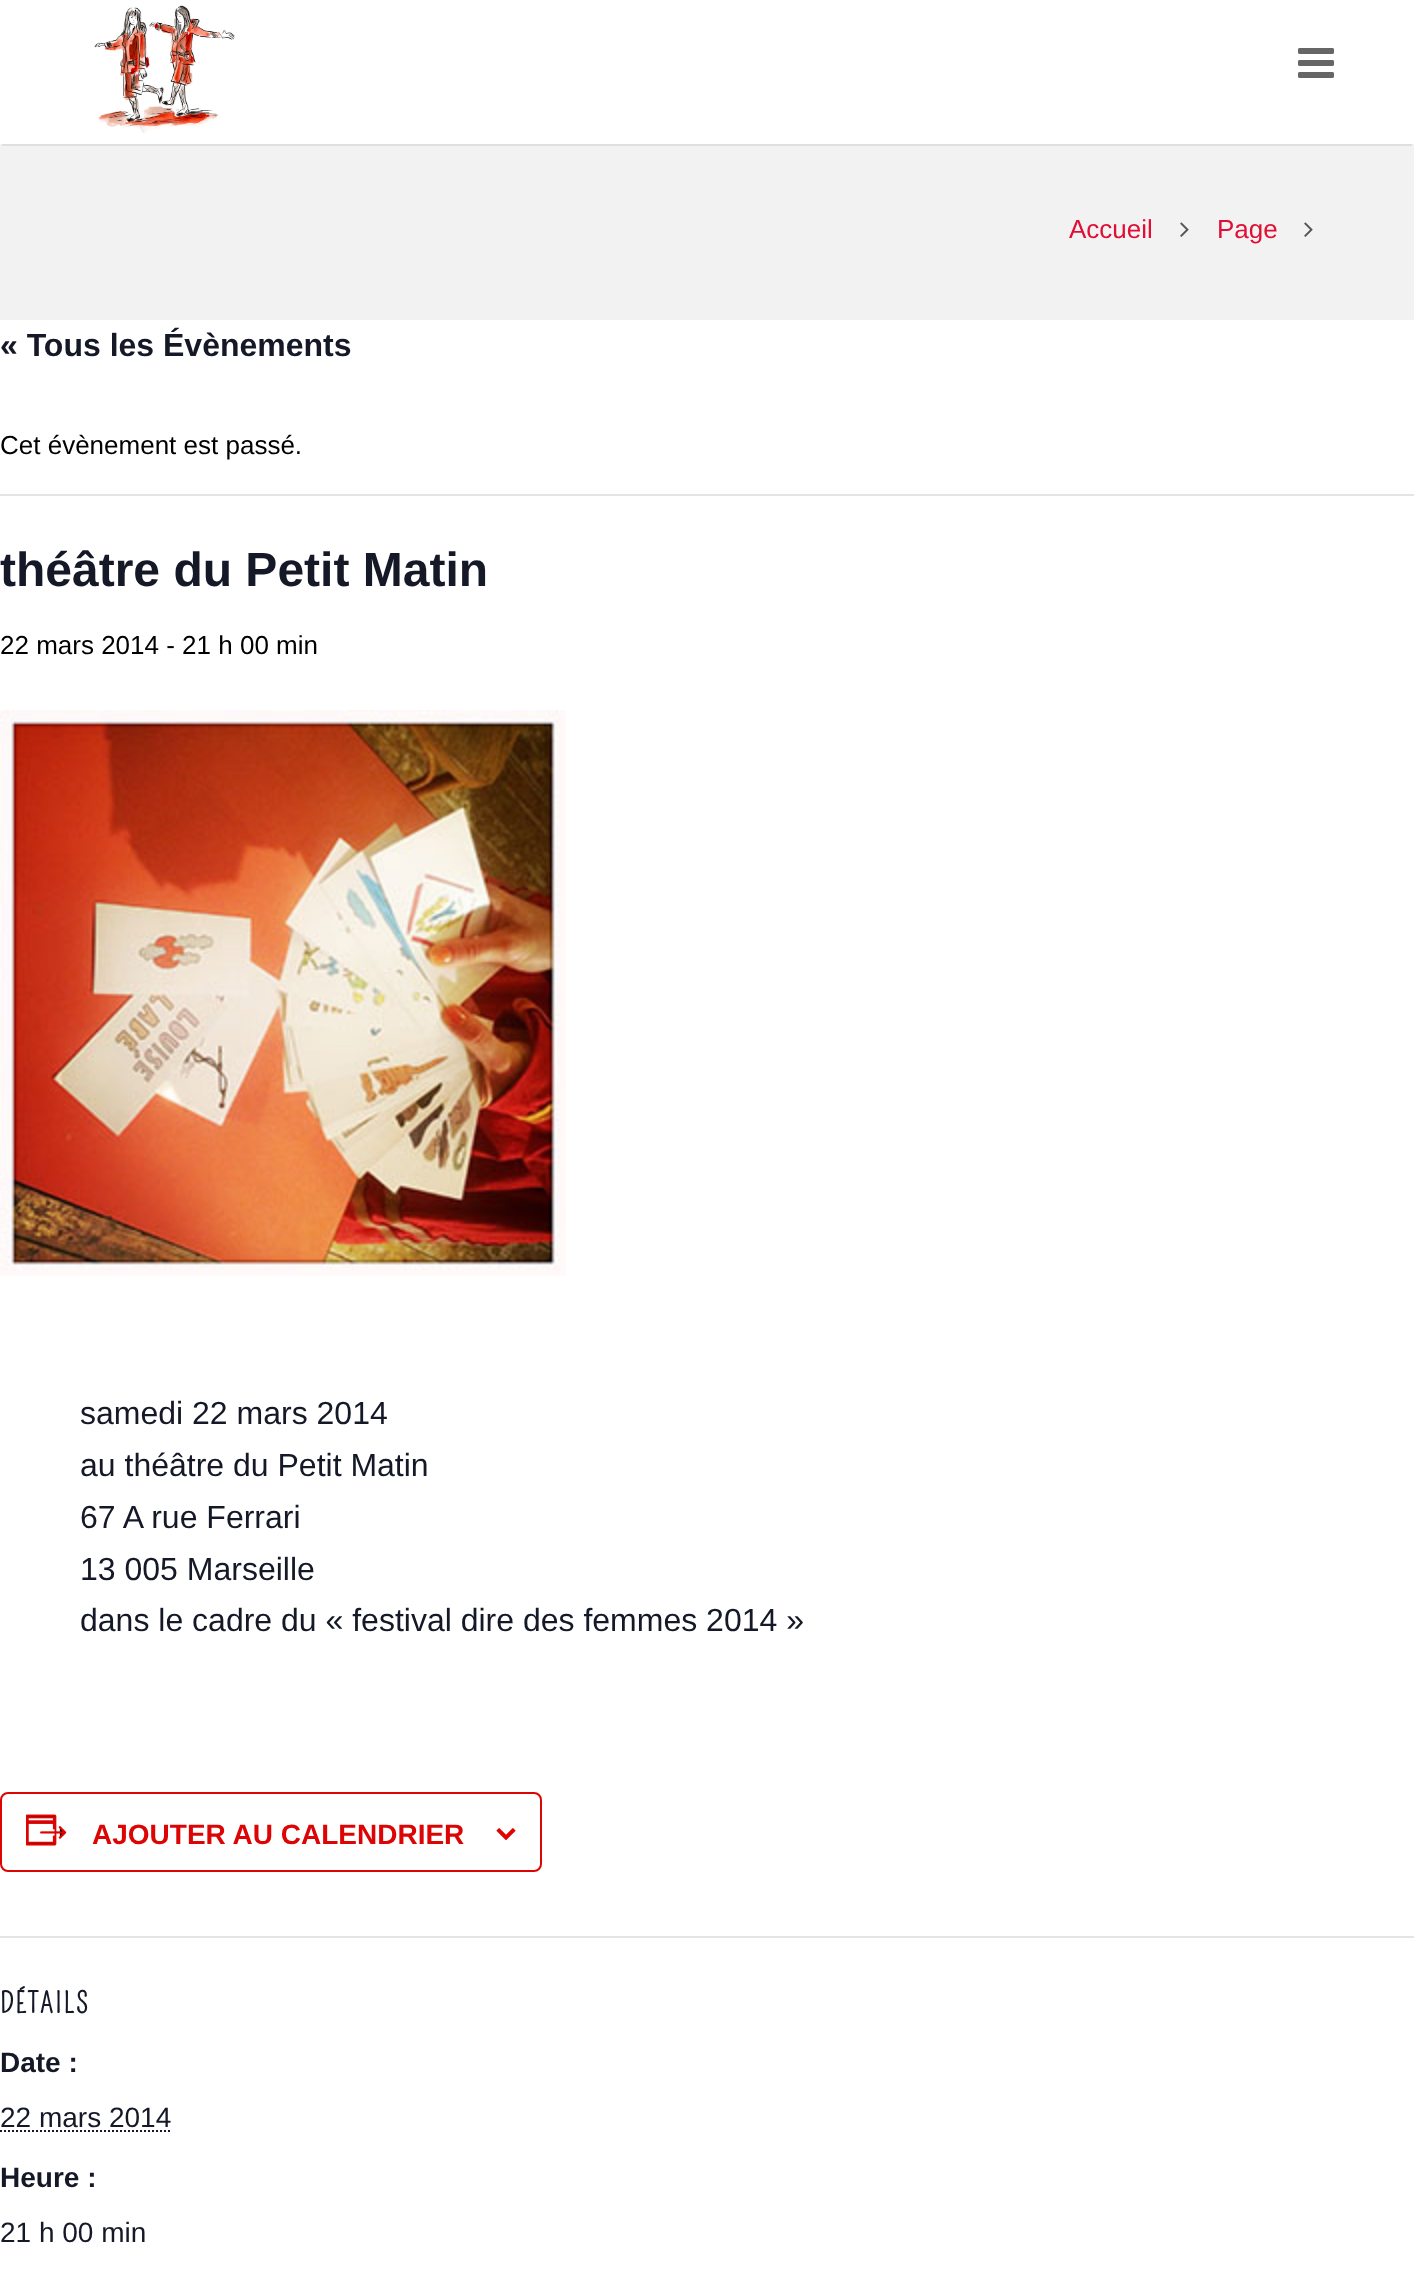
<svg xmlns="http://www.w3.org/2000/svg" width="1414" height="2281">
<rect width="100%" height="100%" fill="#fff"/>
<rect y="144" width="1414" height="176" fill="#f2f2f2"/>
<rect x="2" y="144" width="1410" height="2" fill="#dfdfdf"/>
<image x="94" y="5" width="141" height="128" href="media/1.png"/>
<image x="1298" y="48" width="36" height="30" href="media/2.png"/>
<text x="1069" y="238" style="font-family:Liberation Sans;font-size:26px;fill:#e00d34">Accueil</text>
<image x="1180" y="222" width="9" height="15" href="media/3.png"/>
<text x="1217" y="238" style="font-family:Liberation Sans;font-size:26px;fill:#e00d34">Page</text>
<image x="1304" y="222" width="9" height="15" href="media/3.png"/>
<text x="0" y="356" style="font-family:Liberation Sans;font-size:32px;font-weight:bold;fill:#141827">« Tous les Évènements</text>
<rect y="494" width="1414" height="2" fill="#e4e4e4"/>
<text x="0" y="454" style="font-family:Liberation Sans;font-size:26px;fill:#000">Cet évènement est passé.</text>
<text x="0" y="586" style="font-family:Liberation Sans;font-size:48px;font-weight:bold;fill:#141827">théâtre du Petit Matin</text>
<text x="0" y="654" style="font-family:Liberation Sans;font-size:26px;fill:#000">22 mars 2014 - 21 h 00 min</text>
<image x="0" y="710" width="566" height="566" href="media/4.png"/>
<text x="80" y="1424" style="font-family:Liberation Sans;font-size:32px;fill:#141827">samedi 22 mars 2014</text>
<text x="80" y="1476" style="font-family:Liberation Sans;font-size:32px;fill:#141827">au théâtre du Petit Matin</text>
<text x="80" y="1528" style="font-family:Liberation Sans;font-size:32px;fill:#141827">67 A rue Ferrari</text>
<text x="80" y="1580" style="font-family:Liberation Sans;font-size:32px;fill:#141827">13 005 Marseille</text>
<text x="80" y="1631" style="font-family:Liberation Sans;font-size:32px;fill:#141827">dans le cadre du « festival dire des femmes 2014 »</text>
<rect x="1" y="1793" width="540" height="78" rx="7" fill="none" stroke="#dd0404" stroke-width="2"/>
<image x="26" y="1814" width="41" height="32" href="media/5.png"/>
<text x="92" y="1844" style="font-family:Liberation Sans;font-size:28px;font-weight:bold;fill:#dd0404">AJOUTER AU CALENDRIER</text>
<image x="496" y="1828" width="20" height="12" href="media/6.png"/>
<rect y="1936" width="1414" height="2" fill="#e4e4e4"/>
<text x="0" y="2013" style="font-family:Pompiere;font-size:28px;font-weight:bold;letter-spacing:2px;fill:#141827">DÉTAILS</text>
<text x="0" y="2072" style="font-family:Liberation Sans;font-size:28px;font-weight:bold;fill:#141827">Date :</text>
<text x="0" y="2127" style="font-family:Liberation Sans;font-size:28px;fill:#141827">22 mars 2014</text>
<path d="M0 2131h171" fill="none" stroke="#141827" stroke-width="2" stroke-dasharray="2 2"/>
<text x="0" y="2187" style="font-family:Liberation Sans;font-size:28px;font-weight:bold;fill:#141827">Heure :</text>
<text x="0" y="2242" style="font-family:Liberation Sans;font-size:28px;fill:#141827">21 h 00 min</text>
</svg>
